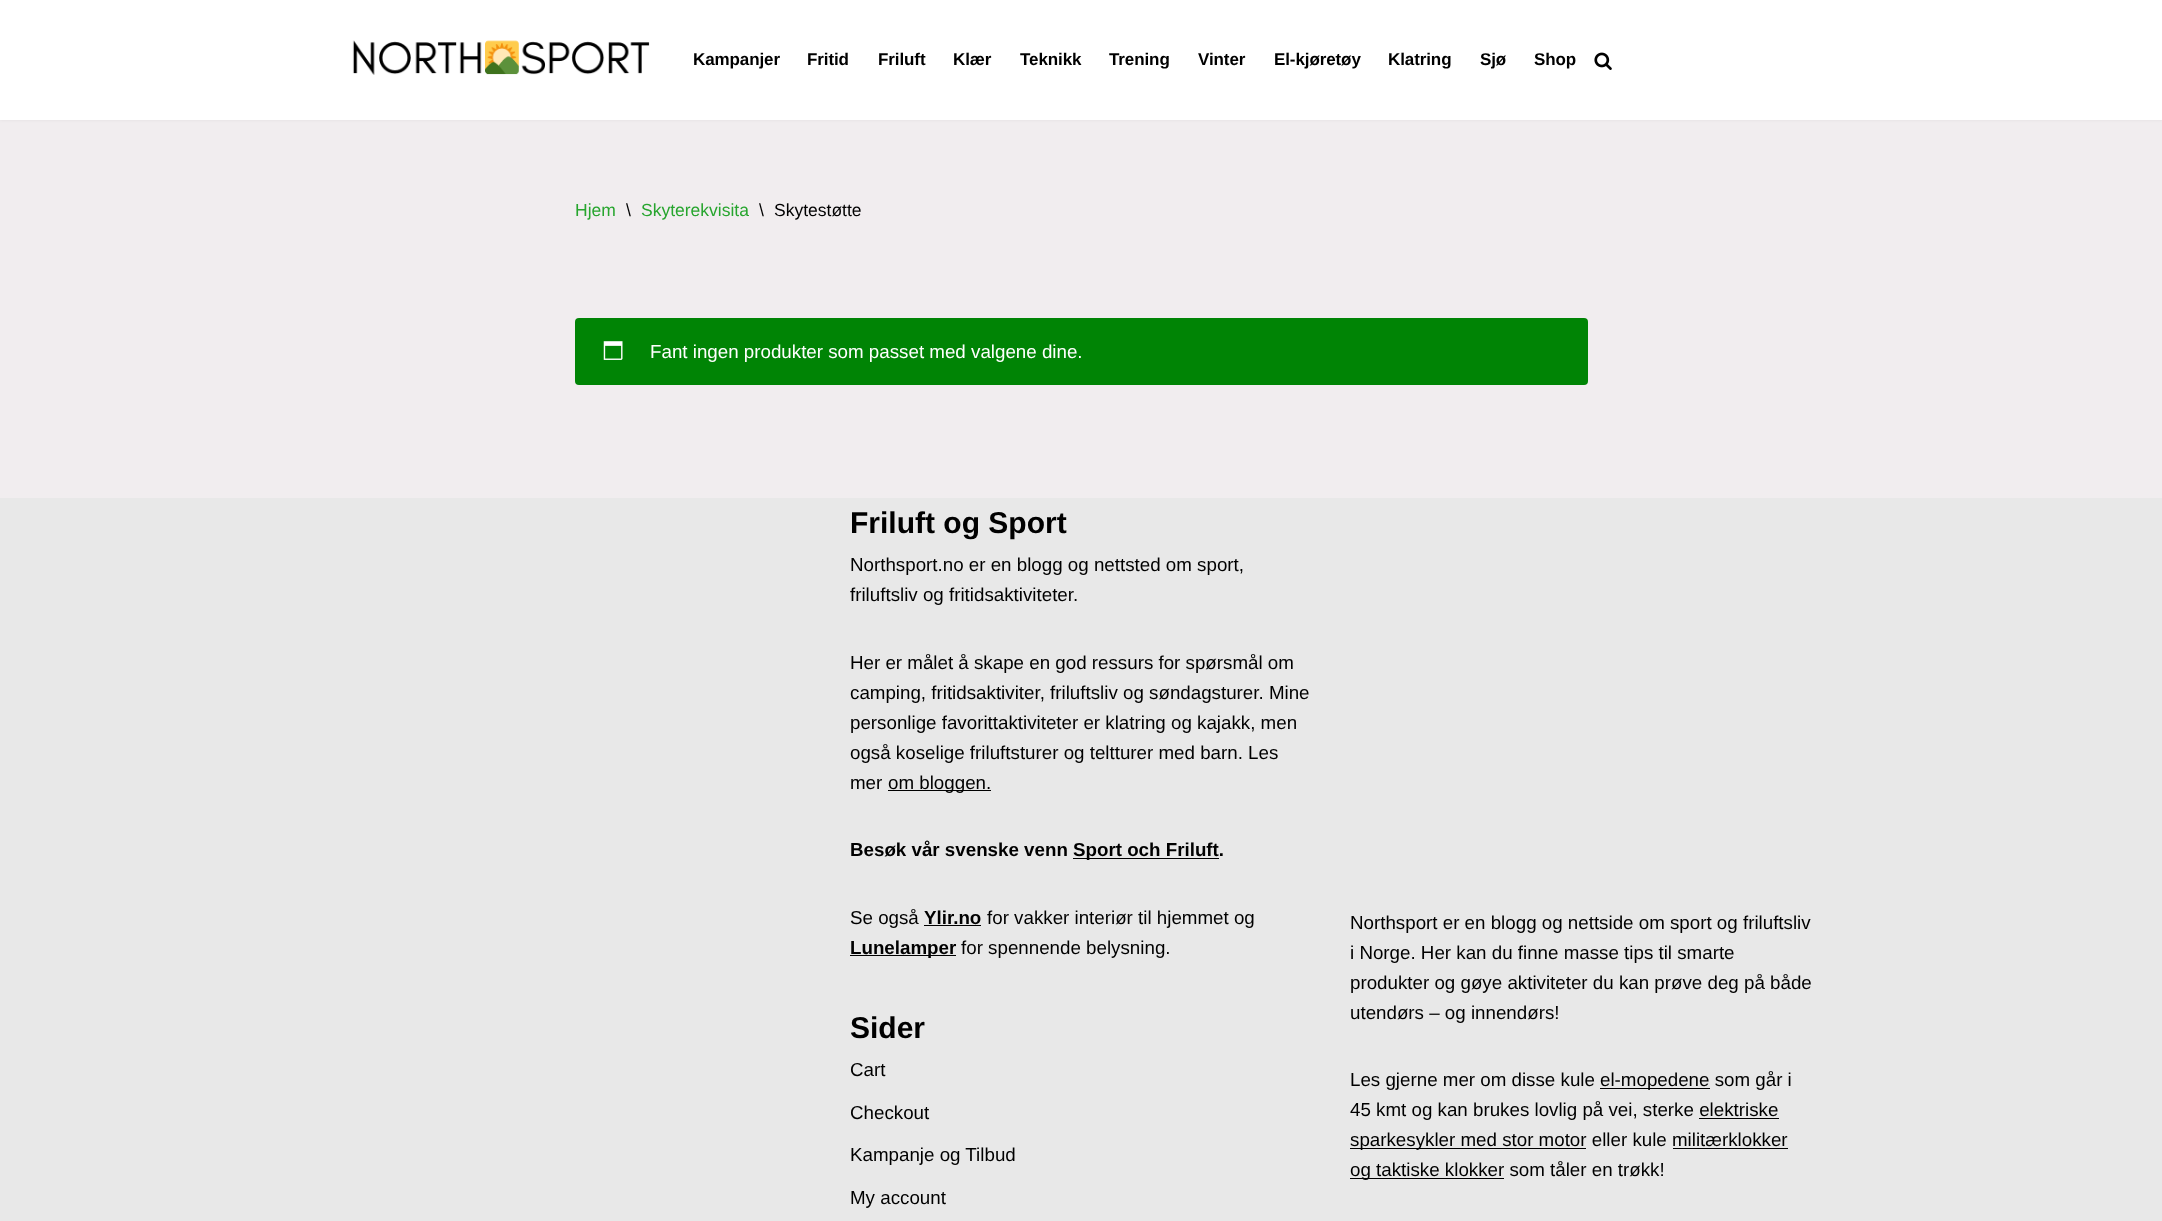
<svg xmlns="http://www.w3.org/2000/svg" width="2162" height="1221">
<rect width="100%" height="100%" fill="#f1edef"/>
<rect y="-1" width="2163" height="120" fill="#0000001a" filter="blur(2px)"/>
<rect width="2162" height="120" fill="#fff"/>
<image x="352" y="40" width="298" height="35" href="media/1.png"/>
<text x="693" y="65" style="font-family:Liberation Sans;font-size:17px;font-weight:bold;letter-spacing:-0.1px;fill:#000">Kampanjer</text>
<text x="807" y="65" style="font-family:Liberation Sans;font-size:17px;font-weight:bold;letter-spacing:-0.1px;fill:#000">Fritid</text>
<text x="878" y="65" style="font-family:Liberation Sans;font-size:17px;font-weight:bold;letter-spacing:-0.1px;fill:#000">Friluft</text>
<text x="953" y="65" style="font-family:Liberation Sans;font-size:17px;font-weight:bold;letter-spacing:-0.1px;fill:#000">Klær</text>
<text x="1020" y="65" style="font-family:Liberation Sans;font-size:17px;font-weight:bold;letter-spacing:-0.1px;fill:#000">Teknikk</text>
<text x="1109" y="65" style="font-family:Liberation Sans;font-size:17px;font-weight:bold;letter-spacing:-0.1px;fill:#000">Trening</text>
<text x="1198" y="65" style="font-family:Liberation Sans;font-size:17px;font-weight:bold;letter-spacing:-0.1px;fill:#000">Vinter</text>
<text x="1274" y="65" style="font-family:Liberation Sans;font-size:17px;font-weight:bold;letter-spacing:-0.1px;fill:#000">El-kjøretøy</text>
<text x="1388" y="65" style="font-family:Liberation Sans;font-size:17px;font-weight:bold;letter-spacing:-0.1px;fill:#000">Klatring</text>
<text x="1480" y="65" style="font-family:Liberation Sans;font-size:17px;font-weight:bold;letter-spacing:-0.1px;fill:#000">Sjø</text>
<text x="1534" y="65" style="font-family:Liberation Sans;font-size:17px;font-weight:bold;letter-spacing:-0.1px;fill:#000">Shop</text>
<image x="1594" y="52" width="18" height="18" href="media/2.png"/>
<text x="575" y="216" style="font-family:Liberation Sans;font-size:17.5px;fill:#27a52e">Hjem</text>
<text x="626" y="216" style="font-family:Liberation Sans;font-size:17.5px;fill:#000">\</text>
<text x="641" y="216" style="font-family:Liberation Sans;font-size:17.5px;fill:#27a52e">Skyterekvisita</text>
<text x="759" y="216" style="font-family:Liberation Sans;font-size:17.5px;fill:#000">\</text>
<text x="774" y="216" style="font-family:Liberation Sans;font-size:17.5px;fill:#000">Skytestøtte</text>
<rect x="575" y="318" width="1013" height="67" rx="4" fill="#008405"/>
<image x="603" y="341" width="20" height="19" href="media/3.png"/>
<text x="650" y="358" style="font-family:Liberation Sans;font-size:18.75px;fill:#fff">Fant ingen produkter som passet med valgene dine.</text>
<rect y="498" width="2162" height="723" fill="#e8e8e8"/>
<text x="850" y="533" style="font-family:Liberation Sans;font-size:30px;font-weight:bold;fill:#000">Friluft og Sport</text>
<text x="850" y="571" style="font-family:Liberation Sans;font-size:18.75px;fill:#000">Northsport.no er en blogg og nettsted om sport,</text>
<text x="850" y="601" style="font-family:Liberation Sans;font-size:18.75px;fill:#000">friluftsliv og fritidsaktiviteter.</text>
<text x="850" y="669" style="font-family:Liberation Sans;font-size:18.75px;fill:#000">Her er målet å skape en god ressurs for spørsmål om</text>
<text x="850" y="699" style="font-family:Liberation Sans;font-size:18.75px;fill:#000">camping, fritidsaktiviter, friluftsliv og søndagsturer. Mine</text>
<text x="850" y="729" style="font-family:Liberation Sans;font-size:18.75px;fill:#000">personlige favorittaktiviteter er klatring og kajakk, men</text>
<text x="850" y="759" style="font-family:Liberation Sans;font-size:18.75px;fill:#000">også koselige friluftsturer og teltturer med barn. Les</text>
<text x="850" y="789" style="font-family:Liberation Sans;font-size:18.75px;fill:#000">mer</text>
<rect x="888" y="790" width="103" height="1" fill="#000"/>
<text x="888" y="789" style="font-family:Liberation Sans;font-size:18.75px;fill:#000">om bloggen.</text>
<text x="850" y="856" style="font-family:Liberation Sans;font-size:18.75px;font-weight:bold;fill:#000">Besøk vår svenske venn</text>
<rect x="1073" y="858" width="146" height="1" fill="#000"/>
<text x="1073" y="856" style="font-family:Liberation Sans;font-size:18.75px;font-weight:bold;fill:#000">Sport och Friluft.</text>
<text x="850" y="924" style="font-family:Liberation Sans;font-size:18.75px;fill:#000">Se også</text>
<text x="924" y="924" style="font-family:Liberation Sans;font-size:18.75px;font-weight:bold;fill:#000">Ylir.no</text>
<rect x="924" y="925" width="57" height="1" fill="#000"/>
<text x="987" y="924" style="font-family:Liberation Sans;font-size:18.75px;fill:#000">for vakker interiør til hjemmet og</text>
<rect x="850" y="955" width="106" height="1" fill="#000"/>
<text x="850" y="954" style="font-family:Liberation Sans;font-size:18.75px;font-weight:bold;fill:#000">Lunelamper</text>
<text x="961" y="954" style="font-family:Liberation Sans;font-size:18.75px;fill:#000">for spennende belysning.</text>
<text x="850" y="1038" style="font-family:Liberation Sans;font-size:30px;font-weight:bold;fill:#000">Sider</text>
<text x="850" y="1076" style="font-family:Liberation Sans;font-size:18.75px;fill:#000">Cart</text>
<text x="850" y="1119" style="font-family:Liberation Sans;font-size:18.75px;fill:#000">Checkout</text>
<text x="850" y="1161" style="font-family:Liberation Sans;font-size:18.75px;fill:#000">Kampanje og Tilbud</text>
<text x="850" y="1204" style="font-family:Liberation Sans;font-size:18.75px;fill:#000">My account</text>
<text x="1350" y="929" style="font-family:Liberation Sans;font-size:18.75px;fill:#000">Northsport er en blogg og nettside om sport og friluftsliv</text>
<text x="1350" y="959" style="font-family:Liberation Sans;font-size:18.75px;fill:#000">i Norge. Her kan du finne masse tips til smarte</text>
<text x="1350" y="989" style="font-family:Liberation Sans;font-size:18.75px;fill:#000">produkter og gøye aktiviteter du kan prøve deg på både</text>
<text x="1350" y="1019" style="font-family:Liberation Sans;font-size:18.75px;fill:#000">utendørs – og innendørs!</text>
<text x="1350" y="1086" style="font-family:Liberation Sans;font-size:18.75px;fill:#000">Les gjerne mer om disse kule</text>
<rect x="1600" y="1088" width="110" height="1" fill="#000"/>
<text x="1600" y="1086" style="font-family:Liberation Sans;font-size:18.75px;fill:#000">el-mopedene som går i</text>
<text x="1350" y="1116" style="font-family:Liberation Sans;font-size:18.75px;fill:#000">45 kmt og kan brukes lovlig på vei, sterke elektriske</text>
<rect x="1350" y="1148" width="236" height="1" fill="#000"/>
<text x="1350" y="1146" style="font-family:Liberation Sans;font-size:18.75px;fill:#000">sparkesykler med stor motor eller kule militærklokker</text>
<rect x="1699" y="1118" width="80" height="1" fill="#000"/>
<rect x="1350" y="1178" width="154" height="1" fill="#000"/>
<text x="1350" y="1176" style="font-family:Liberation Sans;font-size:18.75px;fill:#000">og taktiske klokker som tåler en trøkk!</text>
<rect x="1673" y="1148" width="115" height="1" fill="#000"/>
</svg>
